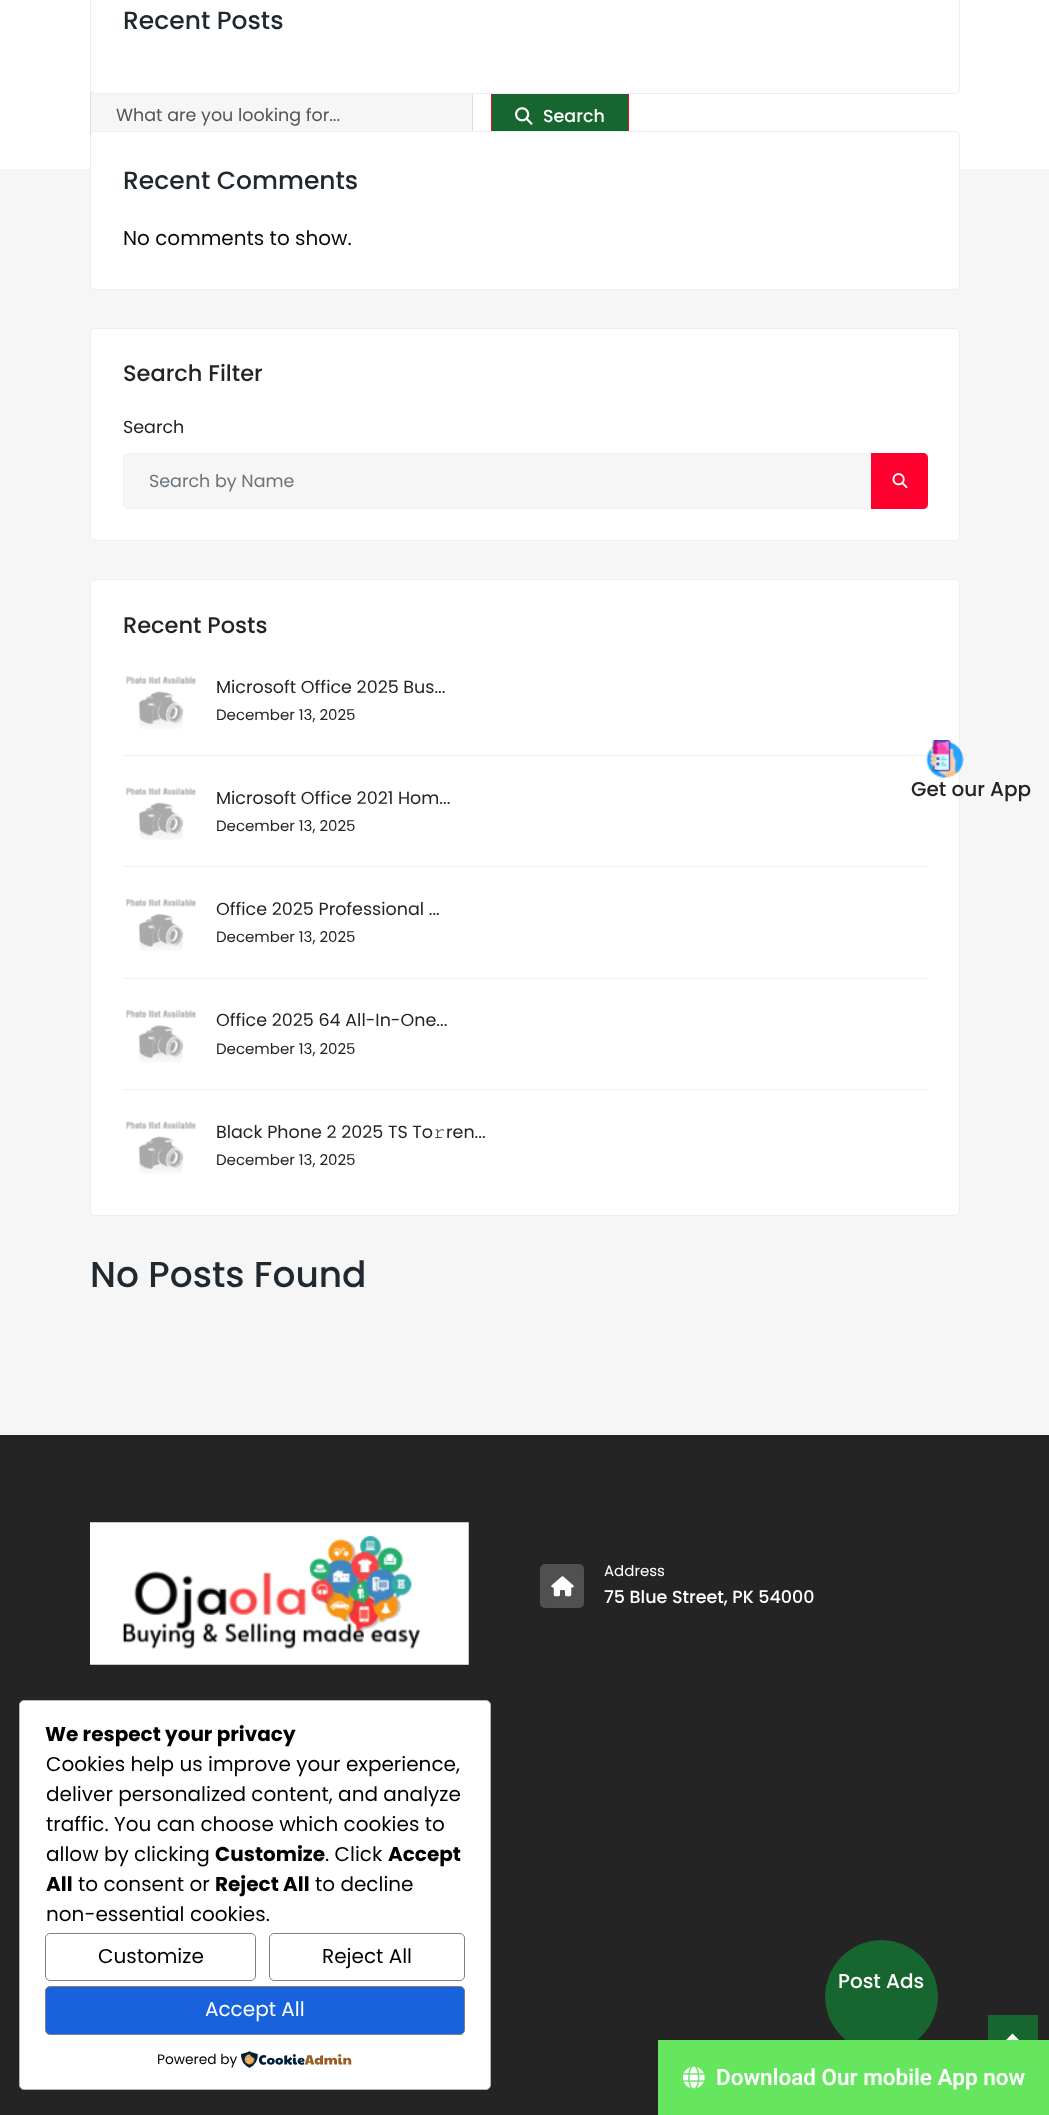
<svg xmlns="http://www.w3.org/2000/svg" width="1049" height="2115">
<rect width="100%" height="100%" fill="#f6f6f6"/>
<rect width="1049" height="169" fill="#fff"/>
<rect x="90.5" y="88.5" width="382" height="55" rx="4.5" fill="#f6f6f6" stroke="#dedede"/>
<rect x="492" y="94" width="136" height="37" fill="#18662f"/>
<rect x="491.5" y="88.5" width="137" height="55" fill="none" stroke="#ff002e"/>
<rect x="90.5" y="-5.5" width="869" height="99" rx="4.5" fill="#fff" stroke="#eee"/>
<text x="123" y="29" style="font-family:Poppins;font-size:25px;font-weight:500;fill:#20292f">Recent Posts</text>
<rect x="90.5" y="131.5" width="869" height="158" rx="4.5" fill="#fff" stroke="#eee"/>
<text x="123" y="189" style="font-family:Poppins;font-size:25px;font-weight:500;fill:#20292f">Recent Comments</text>
<text x="123" y="245" style="font-family:Poppins;font-size:20px;fill:#0a0a0a">No comments to show.</text>
<rect x="90.5" y="328.5" width="869" height="212" rx="4.5" fill="#fff" stroke="#eee"/>
<text x="123" y="381" style="font-family:Poppins;font-size:22.5px;font-weight:500;fill:#242424">Search Filter</text>
<text x="123" y="433" style="font-family:Poppins;font-size:17.5px;fill:#242424">Search</text>
<rect x="124" y="454" width="802" height="54" rx="4" fill="#f6f6f6"/>
<rect x="123.5" y="453.5" width="804" height="55" rx="4.5" fill="none" stroke="#f0f0f0"/>
<text x="149" y="487" style="font-family:Poppins;font-size:17.5px;fill:#6c757d">Search by Name</text>
<path d="M871 453h52c3 0 5 2 5 5v46c0 3-2 5-5 5h-52z" fill="#ff002e"/>
<image x="892" y="473" width="16" height="16" href="media/1.png"/>
<rect x="90.5" y="579.5" width="869" height="636" rx="4.5" fill="#fff" stroke="#eee"/>
<text x="123" y="633" style="font-family:Poppins;font-size:22.5px;font-weight:500;fill:#242424">Recent Posts</text>
<rect x="123" y="755" width="805" height="1" fill="#f1f1f1"/>
<image x="126" y="676" width="70" height="53" href="media/2.png"/>
<text x="216" y="693" style="font-family:Poppins;font-size:17.5px;fill:#242424">Microsoft Office 2025 Bus...</text>
<text x="216" y="720" style="font-family:Poppins;font-size:15px;fill:#242424">December 13, 2025</text>
<rect x="123" y="866" width="805" height="1" fill="#f1f1f1"/>
<image x="126" y="787" width="70" height="53" href="media/3.png"/>
<text x="216" y="804" style="font-family:Poppins;font-size:17.5px;fill:#242424">Microsoft Office 2021 Hom...</text>
<text x="216" y="831" style="font-family:Poppins;font-size:15px;fill:#242424">December 13, 2025</text>
<rect x="123" y="978" width="805" height="1" fill="#f1f1f1"/>
<image x="126" y="899" width="70" height="52" href="media/4.png"/>
<text x="216" y="915" style="font-family:Poppins;font-size:17.5px;fill:#242424">Office 2025 Professional ...</text>
<text x="216" y="942" style="font-family:Poppins;font-size:15px;fill:#242424">December 13, 2025</text>
<rect x="123" y="1089" width="805" height="1" fill="#f1f1f1"/>
<image x="126" y="1010" width="70" height="53" href="media/5.png"/>
<text x="216" y="1026" style="font-family:Poppins;font-size:17.5px;fill:#242424">Office 2025 64 All-In-One...</text>
<text x="216" y="1054" style="font-family:Poppins;font-size:15px;fill:#242424">December 13, 2025</text>
<image x="126" y="1121" width="70" height="53" href="media/6.png"/>
<text x="216" y="1138" style="font-family:Poppins;font-size:17.5px;fill:#242424">Black Phone 2 2025 TS To</text>
<text x="433" y="1138" style="font-family:FreeSerif;font-size:17.5px;fill:#242424">𝚛</text>
<text x="446" y="1138" style="font-family:Poppins;font-size:17.5px;fill:#242424">ren...</text>
<text x="216" y="1165" style="font-family:Poppins;font-size:15px;fill:#242424">December 13, 2025</text>
<text x="90" y="1287" style="font-family:Poppins;font-size:36px;font-weight:500;fill:#20292f">No Posts Found</text>
<text x="116" y="121" style="font-family:Poppins;font-size:17.5px;fill:#555">What are you looking for...</text>
<image x="515" y="107" width="18" height="18" href="media/7.png"/>
<text x="543" y="122" style="font-family:Poppins;font-size:17.5px;font-weight:500;fill:#fff">Search</text>
<image x="926" y="740" width="38" height="38" href="media/8.png"/>
<text x="911" y="796" style="font-family:Poppins;font-size:20px;font-weight:500;fill:#242424">Get our App</text>
<rect y="1435" width="1049" height="680" fill="#242424"/>
<image x="90" y="1522" width="379" height="143" href="media/9.png"/>
<rect x="540" y="1564" width="44" height="44" rx="5" fill="#505050"/>
<image x="551" y="1576" width="23" height="21" href="media/10.png"/>
<text x="604" y="1576" style="font-family:Poppins;font-size:15px;fill:#fff">Address</text>
<text x="604" y="1603" style="font-family:Poppins;font-size:17.5px;font-weight:500;fill:#fff">75 Blue Street, PK 54000</text>
<rect x="19.5" y="1700.5" width="471" height="389" rx="4.5" fill="#fff" stroke="#abb8c3"/>
<text x="45" y="1741" style="font-family:Poppins;font-size:20px;font-weight:bold;fill:#000">We respect your privacy</text>
<text x="46" y="1771" style="font-family:Poppins;font-size:20px;fill:#000">Cookies help us improve your experience,</text>
<text x="46" y="1801" style="font-family:Poppins;font-size:20px;fill:#000">deliver personalized content, and analyze</text>
<text x="46" y="1831" style="font-family:Poppins;font-size:20px;fill:#000">traffic. You can choose which cookies to</text>
<text x="46" y="1861" style="font-family:Poppins;font-size:20px;fill:#000">allow by clicking</text>
<text x="215" y="1861" style="font-family:Poppins;font-size:20px;font-weight:bold;fill:#000">Customize</text>
<text x="325" y="1861" style="font-family:Poppins;font-size:20px;fill:#000">. Click</text>
<text x="388" y="1861" style="font-family:Poppins;font-size:20px;font-weight:bold;fill:#000">Accept</text>
<text x="46" y="1891" style="font-family:Poppins;font-size:20px;font-weight:bold;fill:#000">All</text>
<text x="78" y="1891" style="font-family:Poppins;font-size:20px;fill:#000">to consent or</text>
<text x="215" y="1891" style="font-family:Poppins;font-size:20px;font-weight:bold;fill:#000">Reject All</text>
<text x="315" y="1891" style="font-family:Poppins;font-size:20px;fill:#000">to decline</text>
<text x="46" y="1921" style="font-family:Poppins;font-size:20px;fill:#000">non-essential cookies.</text>
<rect x="45.5" y="1933.5" width="210" height="47" rx="4.5" fill="none" stroke="#808080"/>
<text x="98" y="1963" style="font-family:Poppins;font-size:20px;fill:#000">Customize</text>
<rect x="269.5" y="1933.5" width="195" height="47" rx="4.5" fill="none" stroke="#808080"/>
<text x="322" y="1963" style="font-family:Poppins;font-size:20px;fill:#000">Reject All</text>
<rect x="45.5" y="1986.5" width="419" height="48" rx="4.5" fill="#1863dc" stroke="#808080"/>
<text x="205" y="2016" style="font-family:Poppins;font-size:20px;fill:#fff">Accept All</text>
<text x="157" y="2064" style="font-family:Poppins;font-size:13.75px;fill:#000">Powered by</text>
<image x="241" y="2051" width="111" height="17" href="media/11.png"/>
<circle cx="881.5" cy="1996.5" r="56" fill="#18662f" stroke="#18662f"/>
<text x="838" y="1988" style="font-family:Poppins;font-size:20px;font-weight:500;fill:#fff">Post Ads</text>
<rect x="988" y="2015" width="50" height="25" fill="#18662f"/>
<path d="M1012.5 2033.5l10 10l-3 3l-7-7l-7 7l-3-3z" fill="#fff"/>
<rect x="658" y="2040" width="391" height="75" fill="#66e55f"/>
<image x="683" y="2066" width="22" height="23" href="media/12.png"/>
<text x="716" y="2085" style="font-family:Roboto;font-size:22.5px;font-weight:600;fill:#fff">Download Our mobile App now</text>
</svg>
